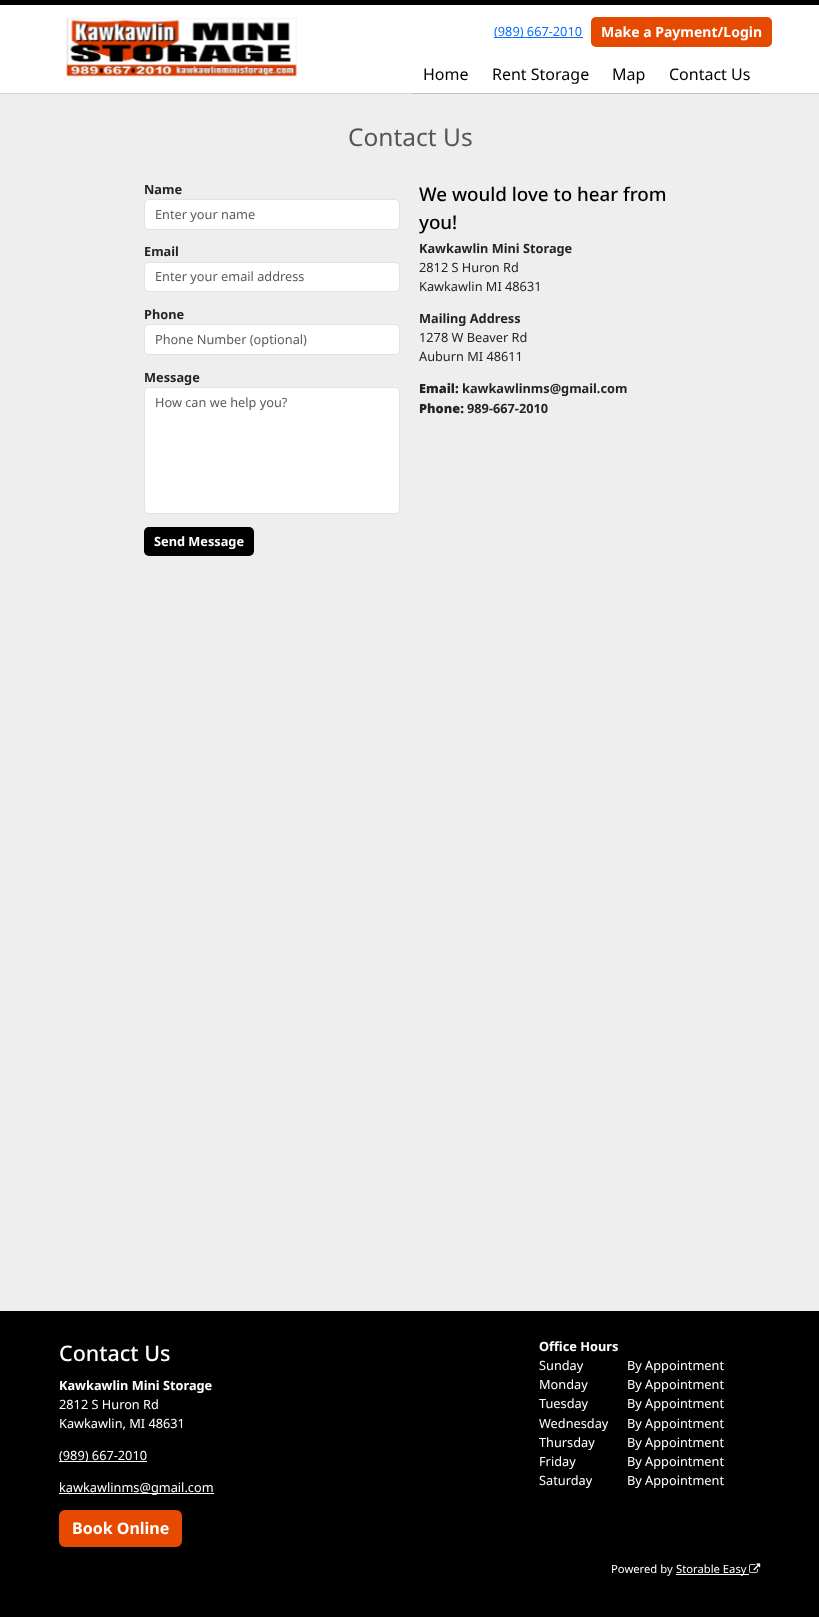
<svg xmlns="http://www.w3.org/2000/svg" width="819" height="1617">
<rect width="100%" height="100%" fill="#eee"/>
<rect y="93" width="819" height="1" fill="#d6d6d6"/>
<rect y="5" width="819" height="88" fill="#fff"/>
<rect width="819" height="5" fill="#000"/>
<image x="66" y="17" width="231" height="60" href="media/1.png"/>
<rect x="494" y="37" width="89" height="1" fill="#0d6efd"/>
<text x="494" y="36" style="font-family:Noto Sans;font-size:12.75px;fill:#0d6efd">(989) 667-2010</text>
<rect x="591" y="17" width="181" height="30" rx="5" fill="#e64a00"/>
<text x="601" y="37" style="font-family:Noto Sans;font-size:14px;font-weight:bold;fill:#fff">Make a Payment/Login</text>
<rect x="412" y="93" width="349" height="1" fill="#c1c1c1"/>
<text x="423" y="80" style="font-family:Noto Sans;font-size:16px;fill:#000">Home</text>
<text x="492" y="80" style="font-family:Noto Sans;font-size:16px;fill:#000">Rent Storage</text>
<text x="612" y="80" style="font-family:Noto Sans;font-size:16px;fill:#000">Map</text>
<text x="669" y="80" style="font-family:Noto Sans;font-size:16px;fill:#000">Contact Us</text>
<text x="348" y="146" style="font-family:Noto Sans;font-size:24.5px;fill:#555">Contact Us</text>
<text x="144" y="194" style="font-family:Noto Sans;font-size:12.75px;font-weight:bold;fill:#212529">Name</text>
<rect x="144.5" y="199.5" width="255" height="30" rx="4.5" fill="#fff" stroke="#dee2e6"/>
<text x="155" y="219" style="font-family:Noto Sans;font-size:12.75px;fill:#595c5f">Enter your name</text>
<text x="144" y="256" style="font-family:Noto Sans;font-size:12.75px;font-weight:bold;fill:#212529">Email</text>
<rect x="144.5" y="262.5" width="255" height="29" rx="4.5" fill="#fff" stroke="#dee2e6"/>
<text x="155" y="281" style="font-family:Noto Sans;font-size:12.75px;fill:#595c5f">Enter your email address</text>
<text x="144" y="319" style="font-family:Noto Sans;font-size:12.75px;font-weight:bold;fill:#212529">Phone</text>
<rect x="144.5" y="324.5" width="255" height="30" rx="4.5" fill="#fff" stroke="#dee2e6"/>
<text x="155" y="344" style="font-family:Noto Sans;font-size:12.75px;fill:#595c5f">Phone Number (optional)</text>
<text x="144" y="382" style="font-family:Noto Sans;font-size:12.75px;font-weight:bold;fill:#212529">Message</text>
<rect x="144.5" y="387.5" width="255" height="126" rx="4.5" fill="#fff" stroke="#dee2e6"/>
<text x="155" y="407" style="font-family:Noto Sans;font-size:12.75px;fill:#595c5f">How can we help you?</text>
<rect x="144" y="527" width="110" height="29" rx="5" fill="#000"/>
<text x="154" y="546" style="font-family:Noto Sans;font-size:12.75px;font-weight:bold;fill:#fff">Send Message</text>
<text x="419" y="201" style="font-family:Noto Sans;font-size:18.75px;font-weight:500;fill:#000">We would love to hear from</text>
<text x="419" y="229" style="font-family:Noto Sans;font-size:18.75px;font-weight:500;fill:#000">you!</text>
<text x="419" y="253" style="font-family:Noto Sans;font-size:12.75px;font-weight:bold;fill:#212529">Kawkawlin Mini Storage</text>
<text x="419" y="272" style="font-family:Noto Sans;font-size:12.75px;fill:#212529">2812 S Huron Rd</text>
<text x="419" y="291" style="font-family:Noto Sans;font-size:12.75px;fill:#212529">Kawkawlin MI 48631</text>
<text x="419" y="323" style="font-family:Noto Sans;font-size:12.75px;font-weight:bold;fill:#212529">Mailing Address</text>
<text x="419" y="342" style="font-family:Noto Sans;font-size:12.75px;fill:#212529">1278 W Beaver Rd</text>
<text x="419" y="361" style="font-family:Noto Sans;font-size:12.75px;fill:#212529">Auburn MI 48611</text>
<text x="419" y="393" style="font-family:Noto Sans;font-size:12.75px;font-weight:900;fill:#212529">Email:</text>
<text x="462" y="393" style="font-family:Noto Sans;font-size:12.75px;font-weight:bold;fill:#212529">kawkawlinms@gmail.com</text>
<text x="419" y="413" style="font-family:Noto Sans;font-size:12.75px;font-weight:900;fill:#212529">Phone:</text>
<text x="467" y="413" style="font-family:Noto Sans;font-size:12.75px;font-weight:bold;fill:#212529">989-667-2010</text>
<rect y="1311" width="819" height="306" fill="#000"/>
<text x="59" y="1361" style="font-family:Noto Sans;font-size:21.5px;font-weight:500;fill:#fff">Contact Us</text>
<text x="59" y="1390" style="font-family:Noto Sans;font-size:12.75px;font-weight:bold;fill:#fff">Kawkawlin Mini Storage</text>
<text x="59" y="1409" style="font-family:Noto Sans;font-size:12.75px;fill:#fff">2812 S Huron Rd</text>
<text x="59" y="1428" style="font-family:Noto Sans;font-size:12.75px;fill:#fff">Kawkawlin, MI 48631</text>
<rect x="59" y="1461" width="88" height="1" fill="#fff"/>
<text x="59" y="1460" style="font-family:Noto Sans;font-size:12.75px;fill:#fff">(989) 667-2010</text>
<rect x="59" y="1493" width="155" height="1" fill="#fff"/>
<text x="59" y="1492" style="font-family:Noto Sans;font-size:12.75px;fill:#fff">kawkawlinms@gmail.com</text>
<text x="539" y="1351" style="font-family:Noto Sans;font-size:12.75px;font-weight:bold;fill:#fff">Office Hours</text>
<text x="539" y="1370" style="font-family:Noto Sans;font-size:12.75px;fill:#fff">Sunday</text>
<text x="627" y="1370" style="font-family:Noto Sans;font-size:12.75px;fill:#fff">By Appointment</text>
<text x="539" y="1389" style="font-family:Noto Sans;font-size:12.75px;fill:#fff">Monday</text>
<text x="627" y="1389" style="font-family:Noto Sans;font-size:12.75px;fill:#fff">By Appointment</text>
<text x="539" y="1408" style="font-family:Noto Sans;font-size:12.75px;fill:#fff">Tuesday</text>
<text x="627" y="1408" style="font-family:Noto Sans;font-size:12.75px;fill:#fff">By Appointment</text>
<text x="539" y="1428" style="font-family:Noto Sans;font-size:12.75px;fill:#fff">Wednesday</text>
<text x="627" y="1428" style="font-family:Noto Sans;font-size:12.75px;fill:#fff">By Appointment</text>
<text x="539" y="1447" style="font-family:Noto Sans;font-size:12.75px;fill:#fff">Thursday</text>
<text x="627" y="1447" style="font-family:Noto Sans;font-size:12.75px;fill:#fff">By Appointment</text>
<text x="539" y="1466" style="font-family:Noto Sans;font-size:12.75px;fill:#fff">Friday</text>
<text x="627" y="1466" style="font-family:Noto Sans;font-size:12.75px;fill:#fff">By Appointment</text>
<text x="539" y="1485" style="font-family:Noto Sans;font-size:12.75px;fill:#fff">Saturday</text>
<text x="627" y="1485" style="font-family:Noto Sans;font-size:12.75px;fill:#fff">By Appointment</text>
<rect x="59" y="1510" width="123" height="37" rx="6" fill="#e64a00"/>
<text x="72" y="1534" style="font-family:Noto Sans;font-size:16px;font-weight:bold;fill:#fff">Book Online</text>
<text x="611" y="1573" style="font-family:Noto Sans;font-size:11.25px;fill:#fff">Powered by</text>
<rect x="676" y="1574" width="73" height="1" fill="#fff"/>
<text x="676" y="1573" style="font-family:Noto Sans;font-size:11.25px;fill:#fff">Storable Easy</text>
<image x="749" y="1563" width="12" height="10" href="media/2.png"/>
</svg>
